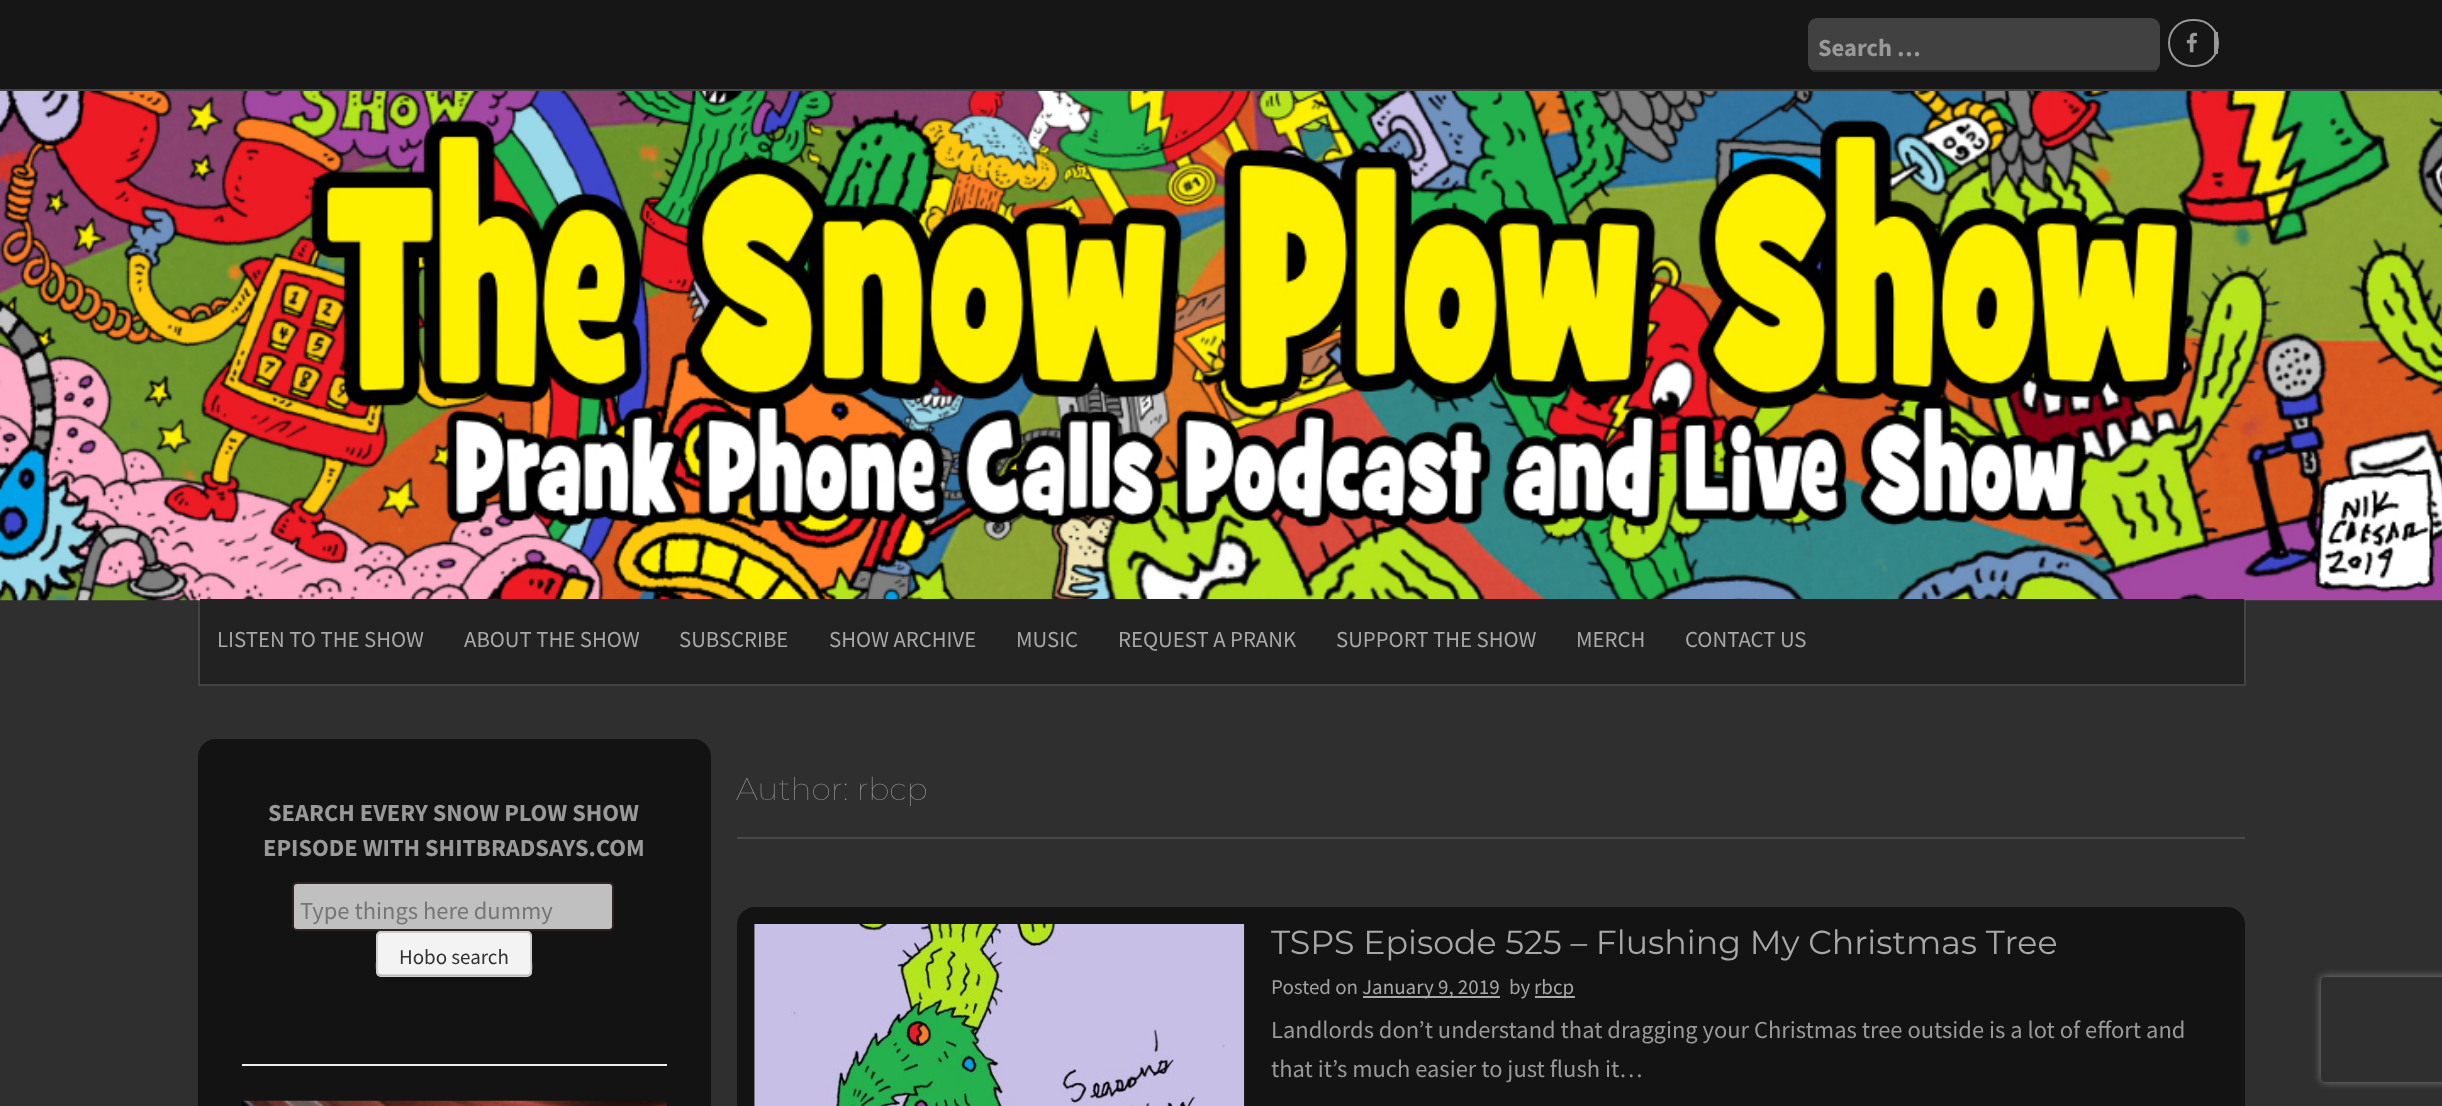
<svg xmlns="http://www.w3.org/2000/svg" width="2442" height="1106">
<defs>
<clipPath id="clip1"><path d="M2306 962h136v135h-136zm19 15h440c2 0 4 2 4 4v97c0 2-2 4-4 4h-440c-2 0-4-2-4-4v-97c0-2 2-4 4-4z" clip-rule="evenodd"/></clipPath>
</defs>
<rect width="100%" height="100%" fill="#2f2f2f"/>
<rect width="2442" height="89" fill="#161616"/>
<rect y="89" width="2442" height="2" fill="#434343"/>
<rect x="1808" y="18" width="352" height="54" rx="9" fill="#414141"/>
<rect x="1813" y="70" width="343" height="2" fill="#2a2a2a"/>
<text x="1818" y="56" style="font-family:Source Sans Pro;font-size:24.5px;font-weight:bold;fill:#999">Search …</text>
<rect x="2169" y="20" width="49" height="46" rx="23" fill="none" stroke="#999" stroke-width="2"/>
<rect x="2214" y="32" width="4" height="22" fill="#999"/>
<image x="2186" y="32" width="11" height="21" href="media/1.png"/>
<rect x="2244" y="600" width="2" height="86" fill="#434343"/>
<rect x="198" y="684" width="2047" height="2" fill="#434343"/>
<rect x="198" y="600" width="2" height="86" fill="#434343"/>
<image x="0" y="91" width="2442" height="510" href="media/2.png"/>
<rect x="200" y="601" width="2044" height="83" fill="#222"/>
<rect x="200" y="599" width="2044" height="2" fill="#222"/>
<text x="217" y="647" style="font-family:Source Sans Pro;font-size:22.75px;fill:#a8a8a8">LISTEN TO THE SHOW</text>
<text x="464" y="647" style="font-family:Source Sans Pro;font-size:22.75px;fill:#a8a8a8">ABOUT THE SHOW</text>
<text x="679" y="647" style="font-family:Source Sans Pro;font-size:22.75px;fill:#a8a8a8">SUBSCRIBE</text>
<text x="829" y="647" style="font-family:Source Sans Pro;font-size:22.75px;fill:#a8a8a8">SHOW ARCHIVE</text>
<text x="1016" y="647" style="font-family:Source Sans Pro;font-size:22.75px;fill:#a8a8a8">MUSIC</text>
<text x="1118" y="647" style="font-family:Source Sans Pro;font-size:22.75px;fill:#a8a8a8">REQUEST A PRANK</text>
<text x="1336" y="647" style="font-family:Source Sans Pro;font-size:22.75px;fill:#a8a8a8">SUPPORT THE SHOW</text>
<text x="1576" y="647" style="font-family:Source Sans Pro;font-size:22.75px;fill:#a8a8a8">MERCH</text>
<text x="1685" y="647" style="font-family:Source Sans Pro;font-size:22.75px;fill:#a8a8a8">CONTACT US</text>
<rect x="198" y="739" width="513" height="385" rx="18" fill="#131313"/>
<text x="268" y="821" style="font-family:Source Sans Pro;font-size:24.5px;font-weight:bold;fill:#999">SEARCH EVERY SNOW PLOW SHOW</text>
<text x="263" y="856" style="font-family:Source Sans Pro;font-size:24.5px;font-weight:bold;fill:#999">EPISODE WITH SHITBRADSAYS.COM</text>
<rect x="293" y="883" width="320" height="47" rx="4" fill="#c0c0c0" stroke="#2f2221" stroke-width="2"/>
<text x="300" y="919" style="font-family:Source Sans Pro;font-size:24.5px;fill:#757575">Type things here dummy</text>
<rect x="376" y="931" width="156" height="46" rx="5" fill="#e6e6e6"/>
<path d="M382 933c-2 0-4 2-4 4v34c0 2 2 4 4 4h144c2 0 4-2 4-4v-34c0-2-2-4-4-4z" fill="#f3f3f3"/>
<path d="M530 974.5c-1 .5-2 1-3 1h-145.5c-1 0-2.5-.5-3-1" fill="none" stroke="#bbb" stroke-width="1.8"/>
<path d="M378.5 974.5c-3-3-1.5-12-1.5-15v-17.5c0-3.5-1-10 4.5-10h145.5c5 0 4 6.5 4 10v17.5c0 3 1.5 12-1 15" fill="none" stroke="#ccc" stroke-width="1.8"/>
<text x="399" y="964" style="font-family:Source Sans Pro;font-size:21px;fill:#313131">Hobo search</text>
<rect x="242" y="1064" width="425" height="2" fill="#eee"/>
<image x="241" y="1100" width="426" height="6" href="media/3.png"/>
<rect x="737" y="837" width="1508" height="2" fill="#494949"/>
<text x="736" y="800" style="font-family:Montserrat;font-size:31.5px;font-weight:100;fill:#999">Author: rbcp</text>
<rect x="737" y="907" width="1508" height="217" rx="18" fill="#131313"/>
<image x="754" y="924" width="491" height="182" href="media/4.png"/>
<text x="1271" y="954" style="font-family:Montserrat;font-size:33.25px;fill:#a8a8a8">TSPS Episode 525 – Flushing My Christmas Tree</text>
<text x="1271" y="994" style="font-family:Source Sans Pro;font-size:21px;fill:#a1a1a1">Posted on</text>
<rect x="1363" y="996" width="137" height="2" fill="#a8a8a8"/>
<text x="1362" y="994" style="font-family:Source Sans Pro;font-size:21px;fill:#a8a8a8">January 9, 2019</text>
<text x="1509" y="994" style="font-family:Source Sans Pro;font-size:21px;fill:#a1a1a1">by</text>
<rect x="1535" y="996" width="40" height="2" fill="#a8a8a8"/>
<text x="1534" y="994" style="font-family:Source Sans Pro;font-size:21px;fill:#a8a8a8">rbcp</text>
<text x="1271" y="1038" style="font-family:Source Sans Pro;font-size:24.5px;fill:#999">Landlords don’t understand that dragging your Christmas tree outside is a lot of effort and</text>
<text x="1271" y="1077" style="font-family:Source Sans Pro;font-size:24.5px;fill:#999">that it’s much easier to just flush it…</text>
<g clip-path="url(#clip1)">
<rect x="2321" y="977" width="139" height="105" rx="4" fill="#808080" filter="blur(4.5px)"/>
</g>
</svg>
